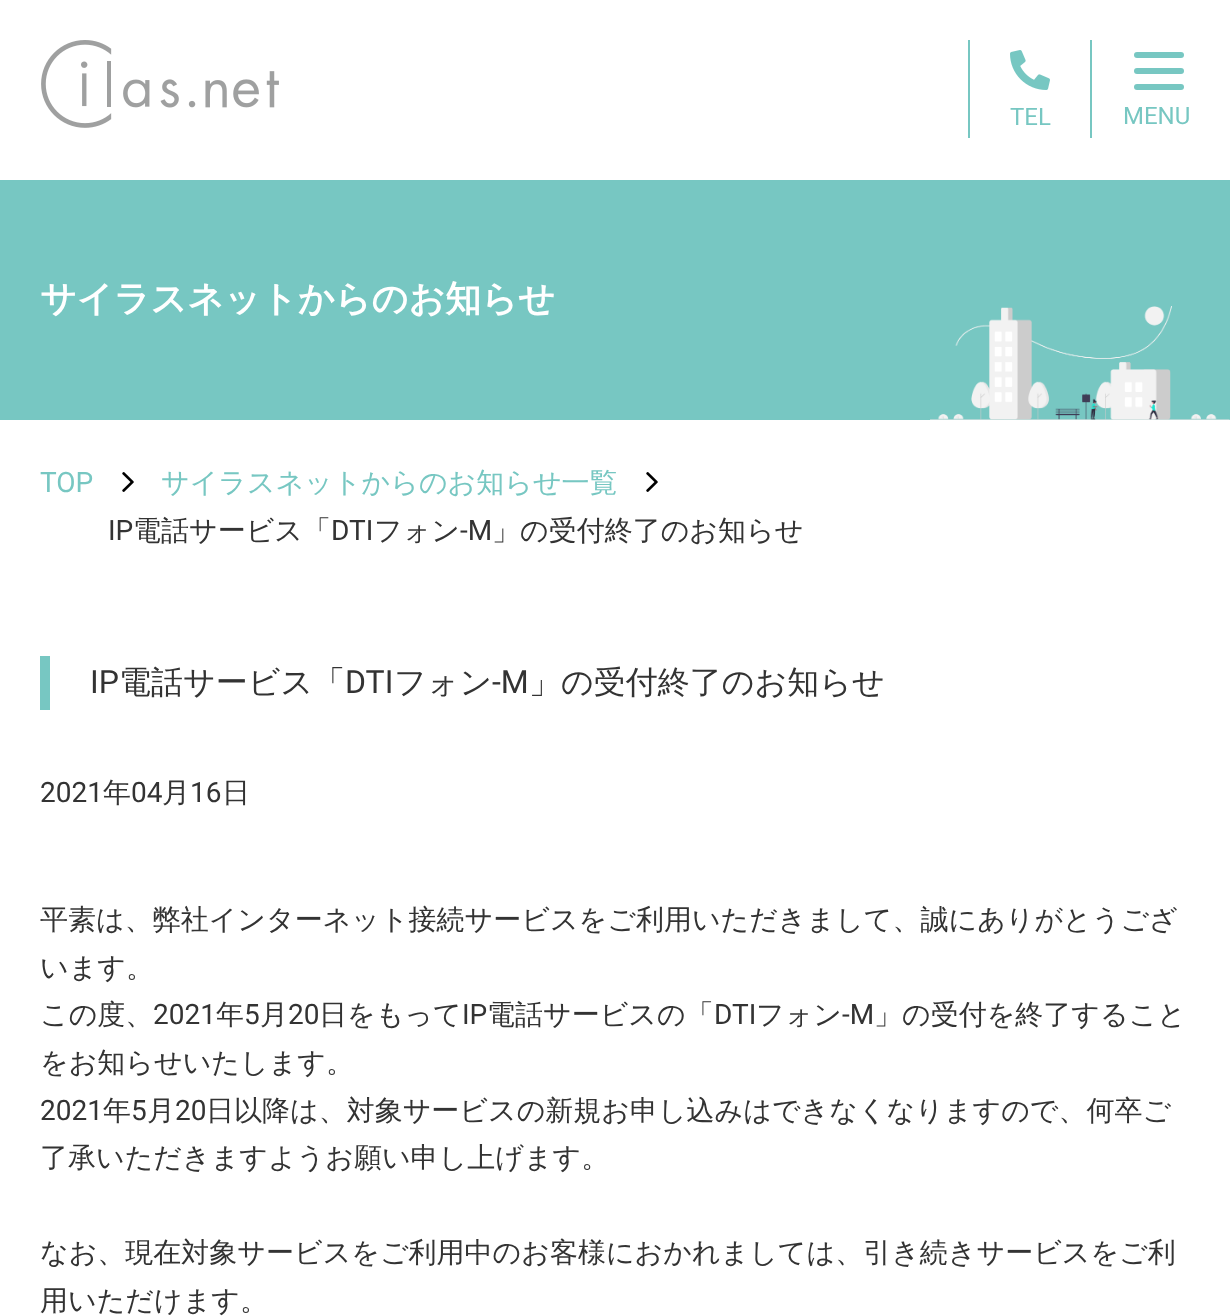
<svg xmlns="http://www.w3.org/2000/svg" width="1230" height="1316">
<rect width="100%" height="100%" fill="#fff"/>
<image x="41" y="40" width="238" height="88" href="media/1.png"/>
<rect x="968" y="40" width="2" height="98" fill="#77c7c2"/>
<image x="1010" y="50" width="40" height="40" href="media/2.png"/>
<text x="1010" y="125" style="font-family:Roboto;font-size:24px;fill:#77c7c2">TEL</text>
<rect x="1090" y="40" width="2" height="98" fill="#77c7c2"/>
<rect x="1134" y="68" width="50" height="6" rx="3" fill="#77c7c2"/>
<rect x="1134" y="52" width="50" height="6" rx="3" fill="#77c7c2"/>
<rect x="1134" y="84" width="50" height="6" rx="3" fill="#77c7c2"/>
<text x="1123" y="124" style="font-family:Roboto;font-size:24px;fill:#77c7c2">MENU</text>
<rect y="180" width="1230" height="240" fill="#77c7c2"/>
<image x="930" y="306" width="300" height="114" href="media/3.png"/>
<text x="40" y="311" style="font-family:WenQuanYi Zen Hei;font-size:36px;font-weight:bold;fill:#fff">サイラスネットからのお知らせ</text>
<text x="40" y="492" style="font-family:Roboto;font-size:28px;fill:#77c7c2">TOP</text>
<image x="122" y="472" width="12" height="20" href="media/4.png"/>
<text x="161" y="492" style="font-family:WenQuanYi Zen Hei;font-size:28px;font-weight:500;fill:#77c7c2">サイラスネットからのお知らせ一覧</text>
<image x="646" y="472" width="12" height="20" href="media/4.png"/>
<text x="108" y="540" style="font-family:Roboto;font-size:28px;fill:#333">IP</text>
<text x="133" y="540" style="font-family:WenQuanYi Zen Hei;font-size:28px;font-weight:500;fill:#333">電話サービス「</text>
<text x="331" y="540" style="font-family:Roboto;font-size:28px;fill:#333">DTI</text>
<text x="374" y="540" style="font-family:WenQuanYi Zen Hei;font-size:28px;font-weight:500;fill:#333">フォン</text>
<text x="460" y="540" style="font-family:Roboto;font-size:28px;fill:#333">-M</text>
<text x="492" y="540" style="font-family:WenQuanYi Zen Hei;font-size:28px;font-weight:500;fill:#333">」の受付終了のお知らせ</text>
<rect x="40" y="656" width="10" height="54" fill="#77c7c2"/>
<text x="90" y="693" style="font-family:Roboto;font-size:32px;fill:#333">IP</text>
<text x="119" y="693" style="font-family:WenQuanYi Zen Hei;font-size:32px;font-weight:500;fill:#333">電話サービス「</text>
<text x="345" y="693" style="font-family:Roboto;font-size:32px;fill:#333">DTI</text>
<text x="394" y="693" style="font-family:WenQuanYi Zen Hei;font-size:32px;font-weight:500;fill:#333">フォン</text>
<text x="492" y="693" style="font-family:Roboto;font-size:32px;fill:#333">-M</text>
<text x="529" y="693" style="font-family:WenQuanYi Zen Hei;font-size:32px;font-weight:500;fill:#333">」の受付終了のお知らせ</text>
<text x="40" y="802" style="font-family:Roboto;font-size:28px;fill:#333">2021</text>
<text x="103" y="802" style="font-family:WenQuanYi Zen Hei;font-size:28px;font-weight:500;fill:#333">年</text>
<text x="131" y="802" style="font-family:Roboto;font-size:28px;fill:#333">04</text>
<text x="162" y="802" style="font-family:WenQuanYi Zen Hei;font-size:28px;font-weight:500;fill:#333">月</text>
<text x="190" y="802" style="font-family:Roboto;font-size:28px;fill:#333">16</text>
<text x="222" y="802" style="font-family:WenQuanYi Zen Hei;font-size:28px;font-weight:500;fill:#333">日</text>
<text x="40" y="929" style="font-family:WenQuanYi Zen Hei;font-size:28px;font-weight:500;fill:#333">平素は、弊社インターネット接続サービスをご利用いただきまして、誠にありがとうござ</text>
<text x="40" y="977" style="font-family:WenQuanYi Zen Hei;font-size:28px;font-weight:500;fill:#333">います。</text>
<text x="40" y="1024" style="font-family:WenQuanYi Zen Hei;font-size:28px;font-weight:500;fill:#333">この度、</text>
<text x="153" y="1024" style="font-family:Roboto;font-size:28px;fill:#333">2021</text>
<text x="216" y="1024" style="font-family:WenQuanYi Zen Hei;font-size:28px;font-weight:500;fill:#333">年</text>
<text x="244" y="1024" style="font-family:Roboto;font-size:28px;fill:#333">5</text>
<text x="260" y="1024" style="font-family:WenQuanYi Zen Hei;font-size:28px;font-weight:500;fill:#333">月</text>
<text x="288" y="1024" style="font-family:Roboto;font-size:28px;fill:#333">20</text>
<text x="319" y="1024" style="font-family:WenQuanYi Zen Hei;font-size:28px;font-weight:500;fill:#333">日をもって</text>
<text x="462" y="1024" style="font-family:Roboto;font-size:28px;fill:#333">IP</text>
<text x="487" y="1024" style="font-family:WenQuanYi Zen Hei;font-size:28px;font-weight:500;fill:#333">電話サービスの「</text>
<text x="714" y="1024" style="font-family:Roboto;font-size:28px;fill:#333">DTI</text>
<text x="756" y="1024" style="font-family:WenQuanYi Zen Hei;font-size:28px;font-weight:500;fill:#333">フォン</text>
<text x="842" y="1024" style="font-family:Roboto;font-size:28px;fill:#333">-M</text>
<text x="874" y="1024" style="font-family:WenQuanYi Zen Hei;font-size:28px;font-weight:500;fill:#333">」の受付を終了すること</text>
<text x="40" y="1072" style="font-family:WenQuanYi Zen Hei;font-size:28px;font-weight:500;fill:#333">をお知らせいたします。</text>
<text x="40" y="1120" style="font-family:Roboto;font-size:28px;fill:#333">2021</text>
<text x="103" y="1120" style="font-family:WenQuanYi Zen Hei;font-size:28px;font-weight:500;fill:#333">年</text>
<text x="131" y="1120" style="font-family:Roboto;font-size:28px;fill:#333">5</text>
<text x="147" y="1120" style="font-family:WenQuanYi Zen Hei;font-size:28px;font-weight:500;fill:#333">月</text>
<text x="175" y="1120" style="font-family:Roboto;font-size:28px;fill:#333">20</text>
<text x="206" y="1120" style="font-family:WenQuanYi Zen Hei;font-size:28px;font-weight:500;fill:#333">日以降は、対象サービスの新規お申し込みはできなくなりますので、何卒ご</text>
<text x="40" y="1167" style="font-family:WenQuanYi Zen Hei;font-size:28px;font-weight:500;fill:#333">了承いただきますようお願い申し上げます。</text>
<text x="40" y="1262" style="font-family:WenQuanYi Zen Hei;font-size:28px;font-weight:500;fill:#333">なお、現在対象サービスをご利用中のお客様におかれましては、引き続きサービスをご利</text>
<text x="40" y="1310" style="font-family:WenQuanYi Zen Hei;font-size:28px;font-weight:500;fill:#333">用いただけます。</text>
</svg>
